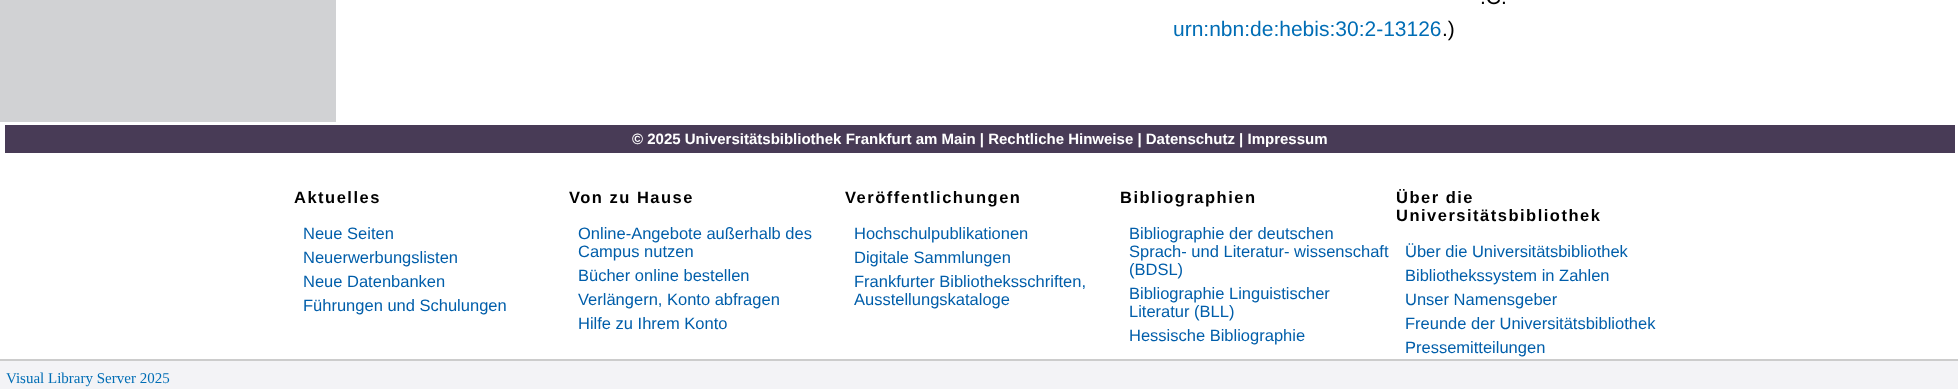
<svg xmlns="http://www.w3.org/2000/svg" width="1958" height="389">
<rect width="100%" height="100%" fill="#fff"/>
<rect width="336" height="122" fill="#d1d2d4"/>
<text x="1480" y="4" style="font-family:Liberation Sans;font-size:21px;fill:#000">.C.</text>
<text x="1173" y="36" style="font-family:Liberation Sans;font-size:21px;fill:#006db5">urn:nbn:de:hebis:30:2-13126</text>
<text x="1442" y="36" style="font-family:Liberation Sans;font-size:21px;fill:#000">.)</text>
<rect x="5" y="125" width="1950" height="28" fill="#483b56"/>
<text x="632" y="144" style="font-family:Liberation Sans;font-size:15px;font-weight:bold;fill:#fff">© 2025 Universitätsbibliothek Frankfurt am Main | Rechtliche Hinweise | Datenschutz | Impressum</text>
<text x="294" y="203" style="font-family:Liberation Sans;font-size:16.5px;font-weight:bold;letter-spacing:1.5px;fill:#000">Aktuelles</text>
<text x="303" y="239" style="font-family:Liberation Sans;font-size:16.5px;fill:#005eaa">Neue Seiten</text>
<text x="303" y="263" style="font-family:Liberation Sans;font-size:16.5px;fill:#005eaa">Neuerwerbungslisten</text>
<text x="303" y="287" style="font-family:Liberation Sans;font-size:16.5px;fill:#005eaa">Neue Datenbanken</text>
<text x="303" y="311" style="font-family:Liberation Sans;font-size:16.5px;fill:#005eaa">Führungen und Schulungen</text>
<text x="569" y="203" style="font-family:Liberation Sans;font-size:16.5px;font-weight:bold;letter-spacing:1.5px;fill:#000">Von zu Hause</text>
<text x="578" y="239" style="font-family:Liberation Sans;font-size:16.5px;fill:#005eaa">Online-Angebote außerhalb des</text>
<text x="578" y="257" style="font-family:Liberation Sans;font-size:16.5px;fill:#005eaa">Campus nutzen</text>
<text x="578" y="281" style="font-family:Liberation Sans;font-size:16.5px;fill:#005eaa">Bücher online bestellen</text>
<text x="578" y="305" style="font-family:Liberation Sans;font-size:16.5px;fill:#005eaa">Verlängern, Konto abfragen</text>
<text x="578" y="329" style="font-family:Liberation Sans;font-size:16.5px;fill:#005eaa">Hilfe zu Ihrem Konto</text>
<text x="845" y="203" style="font-family:Liberation Sans;font-size:16.5px;font-weight:bold;letter-spacing:1.5px;fill:#000">Veröffentlichungen</text>
<text x="854" y="239" style="font-family:Liberation Sans;font-size:16.5px;fill:#005eaa">Hochschulpublikationen</text>
<text x="854" y="263" style="font-family:Liberation Sans;font-size:16.5px;fill:#005eaa">Digitale Sammlungen</text>
<text x="854" y="287" style="font-family:Liberation Sans;font-size:16.5px;fill:#005eaa">Frankfurter Bibliotheksschriften,</text>
<text x="854" y="305" style="font-family:Liberation Sans;font-size:16.5px;fill:#005eaa">Ausstellungskataloge</text>
<text x="1120" y="203" style="font-family:Liberation Sans;font-size:16.5px;font-weight:bold;letter-spacing:1.5px;fill:#000">Bibliographien</text>
<text x="1129" y="239" style="font-family:Liberation Sans;font-size:16.5px;fill:#005eaa">Bibliographie der deutschen</text>
<text x="1129" y="257" style="font-family:Liberation Sans;font-size:16.5px;fill:#005eaa">Sprach- und Literatur- wissenschaft</text>
<text x="1129" y="275" style="font-family:Liberation Sans;font-size:16.5px;fill:#005eaa">(BDSL)</text>
<text x="1129" y="299" style="font-family:Liberation Sans;font-size:16.5px;fill:#005eaa">Bibliographie Linguistischer</text>
<text x="1129" y="317" style="font-family:Liberation Sans;font-size:16.5px;fill:#005eaa">Literatur (BLL)</text>
<text x="1129" y="341" style="font-family:Liberation Sans;font-size:16.5px;fill:#005eaa">Hessische Bibliographie</text>
<text x="1396" y="203" style="font-family:Liberation Sans;font-size:16.5px;font-weight:bold;letter-spacing:1.5px;fill:#000">Über die</text>
<text x="1396" y="221" style="font-family:Liberation Sans;font-size:16.5px;font-weight:bold;letter-spacing:1.5px;fill:#000">Universitätsbibliothek</text>
<text x="1405" y="257" style="font-family:Liberation Sans;font-size:16.5px;fill:#005eaa">Über die Universitätsbibliothek</text>
<text x="1405" y="281" style="font-family:Liberation Sans;font-size:16.5px;fill:#005eaa">Bibliothekssystem in Zahlen</text>
<text x="1405" y="305" style="font-family:Liberation Sans;font-size:16.5px;fill:#005eaa">Unser Namensgeber</text>
<text x="1405" y="329" style="font-family:Liberation Sans;font-size:16.5px;fill:#005eaa">Freunde der Universitätsbibliothek</text>
<text x="1405" y="353" style="font-family:Liberation Sans;font-size:16.5px;fill:#005eaa">Pressemitteilungen</text>
<rect y="361" width="1958" height="28" fill="#f3f3f6"/>
<rect y="359" width="1958" height="2" fill="#ccc"/>
<text x="6" y="383" style="font-family:Liberation Serif;font-size:15px;fill:#006db5">Visual Library Server 2025</text>
</svg>
